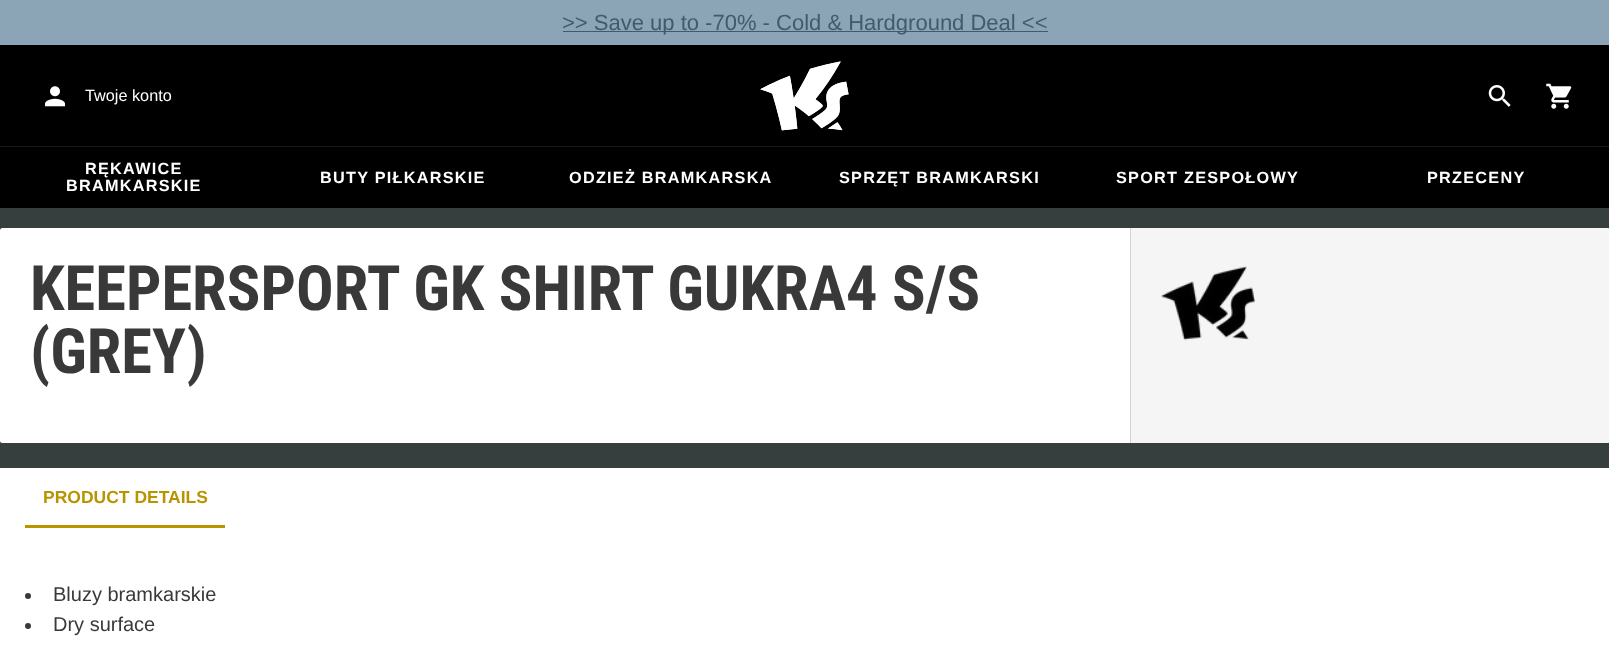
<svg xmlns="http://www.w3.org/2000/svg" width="1609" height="650">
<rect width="100%" height="100%" fill="#373e3e"/>
<rect width="1609" height="45" fill="#8ba4b6"/>
<rect x="563" y="31" width="485" height="1" fill="#415a6c"/>
<text x="562" y="30" style="font-family:Liberation Sans;font-size:22px;fill:#415a6c">&gt;&gt; Save up to -70% - Cold &amp; Hardground Deal &lt;&lt;</text>
<rect y="45" width="1609" height="101" fill="#000"/>
<image x="45" y="86" width="20" height="21" href="media/1.png"/>
<text x="85" y="101" style="font-family:Liberation Sans;font-size:16.25px;fill:#fff">Twoje konto</text>
<image x="760" y="61" width="89" height="70" href="media/2.png"/>
<image x="1488" y="85" width="23" height="22" href="media/3.png"/>
<image x="1546" y="83" width="26" height="26" href="media/4.png"/>
<rect y="147" width="1609" height="61" fill="#000"/>
<rect y="146" width="1609" height="1" fill="#1a1a1a"/>
<text x="85" y="174" style="font-family:Liberation Sans;font-size:16.25px;font-weight:bold;letter-spacing:1.25px;fill:#fff">RĘKAWICE</text>
<text x="66" y="191" style="font-family:Liberation Sans;font-size:16.25px;font-weight:bold;letter-spacing:1.25px;fill:#fff">BRAMKARSKIE</text>
<text x="320" y="183" style="font-family:Liberation Sans;font-size:16.25px;font-weight:bold;letter-spacing:1.25px;fill:#fff">BUTY PIŁKARSKIE</text>
<text x="569" y="183" style="font-family:Liberation Sans;font-size:16.25px;font-weight:bold;letter-spacing:1.25px;fill:#fff">ODZIEŻ BRAMKARSKA</text>
<text x="839" y="183" style="font-family:Liberation Sans;font-size:16.25px;font-weight:bold;letter-spacing:1.25px;fill:#fff">SPRZĘT BRAMKARSKI</text>
<text x="1116" y="183" style="font-family:Liberation Sans;font-size:16.25px;font-weight:bold;letter-spacing:1.25px;fill:#fff">SPORT ZESPOŁOWY</text>
<text x="1427" y="183" style="font-family:Liberation Sans;font-size:16.25px;font-weight:bold;letter-spacing:1.25px;fill:#fff">PRZECENY</text>
<rect y="228" width="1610" height="215" rx="2.5" fill="#fff"/>
<text x="30" y="310" style="font-family:Roboto Condensed;font-size:62.5px;font-weight:bold;fill:#393939">KEEPERSPORT GK SHIRT GUKRA4 S/S</text>
<text x="30" y="373" style="font-family:Roboto Condensed;font-size:62.5px;font-weight:bold;fill:#393939">(GREY)</text>
<rect x="1131" y="228" width="478" height="215" fill="#0000000a"/>
<rect x="1130" y="228" width="1" height="215" fill="#d4d4d4"/>
<image x="1161" y="266" width="94" height="75" href="media/5.png"/>
<rect y="468" width="1609" height="182" fill="#fff"/>
<rect x="25" y="525" width="200" height="3" fill="#b89500"/>
<text x="43" y="503" style="font-family:Liberation Sans;font-size:17.5px;font-weight:bold;fill:#b89500">PRODUCT DETAILS</text>
<circle cx="28" cy="596" r="3" fill="#393939"/>
<text x="53" y="601" style="font-family:Liberation Sans;font-size:20px;fill:#393939">Bluzy bramkarskie</text>
<circle cx="28" cy="626" r="3" fill="#393939"/>
<text x="53" y="631" style="font-family:Liberation Sans;font-size:20px;fill:#393939">Dry surface</text>
</svg>
